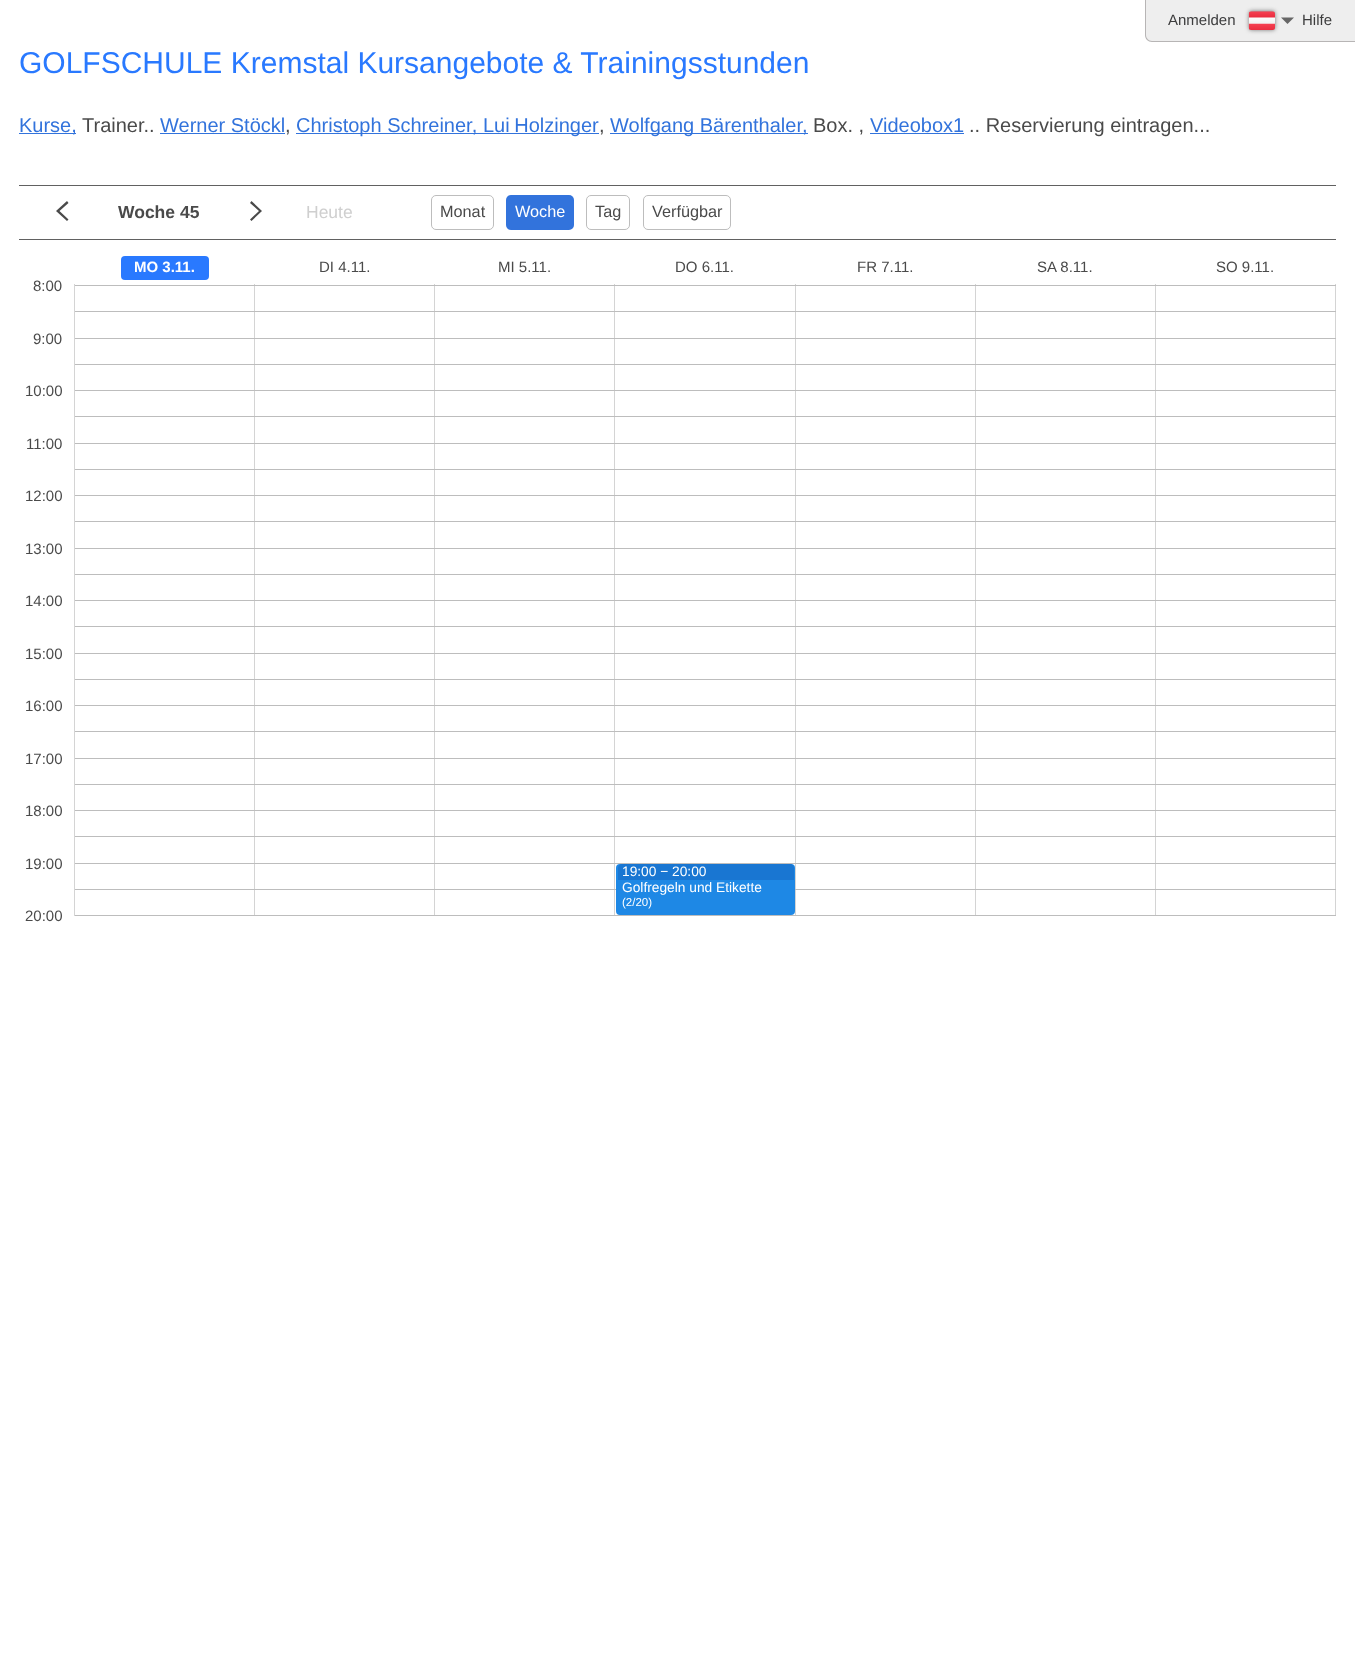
<svg xmlns="http://www.w3.org/2000/svg" width="1355" height="1673">
<rect width="100%" height="100%" fill="#fff"/>
<path d="M1146 0h209v41h-203c-3.5 0-6-2.5-6-6z" fill="#eee"/>
<path d="M1145 0h210v42h-203c-4 0-7-3-7-7zm1 0h209v41h-203c-3 0-6-3-6-6z" fill="#b7b5b5" fill-rule="evenodd"/>
<text x="1168" y="25" style="font-family:Liberation Sans;font-size:15px;fill:#3c3c3d">Anmelden</text>
<rect x="1249" y="11" width="26" height="19" rx="2.5" fill="#777" filter="blur(2px)"/>
<image x="1248" y="11" width="27" height="19" href="media/1.png"/>
<path d="M1281 17.5h13l-6.5 6.5z" fill="#666"/>
<text x="1302" y="25" style="font-family:Liberation Sans;font-size:15px;fill:#3c3c3d">Hilfe</text>
<text x="19" y="73" style="font-family:Liberation Sans;font-size:30px;fill:#2979ff">GOLFSCHULE Kremstal Kursangebote &amp; Trainingsstunden</text>
<rect x="19" y="133" width="57" height="1" fill="#3273dc"/>
<text x="19" y="132" style="font-family:Liberation Sans;font-size:20px;fill:#3273dc">Kurse,</text>
<text x="82" y="132" style="font-family:Liberation Sans;font-size:20px;fill:#4a4a4a">Trainer..</text>
<text x="160" y="132" style="font-family:Liberation Sans;font-size:20px;fill:#3273dc">Werner Stöckl</text>
<rect x="160" y="133" width="125" height="1" fill="#3273dc"/>
<text x="285" y="132" style="font-family:Liberation Sans;font-size:20px;fill:#4a4a4a">,</text>
<rect x="296" y="133" width="303" height="1" fill="#3273dc"/>
<text x="296" y="132" style="font-family:Liberation Sans;font-size:20px;fill:#3273dc">Christoph Schreiner,</text>
<text x="483" y="132" word-spacing="-1" style="font-family:Liberation Sans;font-size:20px;fill:#3273dc">Lui Holzinger</text>
<text x="599" y="132" style="font-family:Liberation Sans;font-size:20px;fill:#4a4a4a">,</text>
<rect x="610" y="133" width="198" height="1" fill="#3273dc"/>
<text x="610" y="132" style="font-family:Liberation Sans;font-size:20px;fill:#3273dc">Wolfgang Bärenthaler,</text>
<text x="813" y="132" style="font-family:Liberation Sans;font-size:20px;fill:#4a4a4a">Box. ,</text>
<text x="870" y="132" style="font-family:Liberation Sans;font-size:20px;fill:#3273dc">Videobox1</text>
<rect x="870" y="133" width="94" height="1" fill="#3273dc"/>
<text x="969" y="132" style="font-family:Liberation Sans;font-size:20px;fill:#4a4a4a">.. Reservierung eintragen...</text>
<rect x="19" y="185" width="1317" height="1" fill="#616161"/>
<rect x="19" y="239" width="1317" height="1" fill="#616161"/>
<path d="M68.5 203l-9 8l9 8.5l-1.5 1.5l-11-10l11-10z" fill="#4a4a4a"/>
<text x="118" y="218" style="font-family:Liberation Sans;font-size:17.5px;font-weight:bold;fill:#4a4a4a">Woche 45</text>
<path d="M250 203l1.5-2l10.5 10l-10.5 10l-1.5-1.5l9-8.5z" fill="#4a4a4a"/>
<text x="306" y="218" style="font-family:Liberation Sans;font-size:17.5px;fill:#cfcfcf">Heute</text>
<rect x="431.5" y="195.5" width="62" height="34" rx="4.5" fill="none" stroke="#bdbdbd"/>
<text x="440" y="217" style="font-family:Liberation Sans;font-size:16.25px;fill:#4a4a4a">Monat</text>
<rect x="506" y="195" width="68" height="35" rx="5" fill="#3273dc"/>
<text x="515" y="217" style="font-family:Liberation Sans;font-size:16.25px;fill:#fff">Woche</text>
<rect x="586.5" y="195.5" width="43" height="34" rx="4.5" fill="none" stroke="#bdbdbd"/>
<text x="595" y="217" style="font-family:Liberation Sans;font-size:16.25px;fill:#4a4a4a">Tag</text>
<rect x="643.5" y="195.5" width="87" height="34" rx="4.5" fill="none" stroke="#bdbdbd"/>
<text x="652" y="217" style="font-family:Liberation Sans;font-size:16.25px;fill:#4a4a4a">Verfügbar</text>
<rect x="121" y="256" width="88" height="24" rx="4" fill="#2979ff"/>
<text x="134" y="272" style="font-family:Liberation Sans;font-size:15px;font-weight:bold;fill:#fff">MO 3.11.</text>
<text x="319" y="272" style="font-family:Liberation Sans;font-size:15px;fill:#4a4a4a">DI 4.11.</text>
<text x="498" y="272" style="font-family:Liberation Sans;font-size:15px;fill:#4a4a4a">MI 5.11.</text>
<text x="675" y="272" style="font-family:Liberation Sans;font-size:15px;fill:#4a4a4a">DO 6.11.</text>
<text x="857" y="272" style="font-family:Liberation Sans;font-size:15px;fill:#4a4a4a">FR 7.11.</text>
<text x="1037" y="272" style="font-family:Liberation Sans;font-size:15px;fill:#4a4a4a">SA 8.11.</text>
<text x="1216" y="272" style="font-family:Liberation Sans;font-size:15px;fill:#4a4a4a">SO 9.11.</text>
<rect x="74" y="284" width="1" height="632" fill="#d4d4d4"/>
<text x="33" y="291" style="font-family:Liberation Sans;font-size:15px;fill:#4a4a4a">8:00</text>
<text x="33" y="344" style="font-family:Liberation Sans;font-size:15px;fill:#4a4a4a">9:00</text>
<text x="25" y="396" style="font-family:Liberation Sans;font-size:15px;fill:#4a4a4a">10:00</text>
<text x="26" y="449" style="font-family:Liberation Sans;font-size:15px;fill:#4a4a4a">11:00</text>
<text x="25" y="501" style="font-family:Liberation Sans;font-size:15px;fill:#4a4a4a">12:00</text>
<text x="25" y="554" style="font-family:Liberation Sans;font-size:15px;fill:#4a4a4a">13:00</text>
<text x="25" y="606" style="font-family:Liberation Sans;font-size:15px;fill:#4a4a4a">14:00</text>
<text x="25" y="659" style="font-family:Liberation Sans;font-size:15px;fill:#4a4a4a">15:00</text>
<text x="25" y="711" style="font-family:Liberation Sans;font-size:15px;fill:#4a4a4a">16:00</text>
<text x="25" y="764" style="font-family:Liberation Sans;font-size:15px;fill:#4a4a4a">17:00</text>
<text x="25" y="816" style="font-family:Liberation Sans;font-size:15px;fill:#4a4a4a">18:00</text>
<text x="25" y="869" style="font-family:Liberation Sans;font-size:15px;fill:#4a4a4a">19:00</text>
<text x="25" y="921" style="font-family:Liberation Sans;font-size:15px;fill:#4a4a4a">20:00</text>
<rect x="254" y="284" width="1" height="632" fill="#d4d4d4"/>
<rect x="434" y="284" width="1" height="632" fill="#d4d4d4"/>
<rect x="614" y="284" width="1" height="632" fill="#d4d4d4"/>
<rect x="975" y="284" width="1" height="632" fill="#d4d4d4"/>
<rect x="795" y="284" width="1" height="632" fill="#d4d4d4"/>
<rect x="1155" y="284" width="1" height="632" fill="#d4d4d4"/>
<rect x="1335" y="284" width="1" height="632" fill="#d4d4d4"/>
<rect x="75" y="285" width="1261" height="1" fill="#bdbdbd"/>
<rect x="75" y="311" width="1261" height="1" fill="#bdbdbd"/>
<rect x="75" y="338" width="1261" height="1" fill="#bdbdbd"/>
<rect x="75" y="364" width="1261" height="1" fill="#bdbdbd"/>
<rect x="75" y="390" width="1261" height="1" fill="#bdbdbd"/>
<rect x="75" y="416" width="1261" height="1" fill="#bdbdbd"/>
<rect x="75" y="443" width="1261" height="1" fill="#bdbdbd"/>
<rect x="75" y="469" width="1261" height="1" fill="#bdbdbd"/>
<rect x="75" y="495" width="1261" height="1" fill="#bdbdbd"/>
<rect x="75" y="521" width="1261" height="1" fill="#bdbdbd"/>
<rect x="75" y="548" width="1261" height="1" fill="#bdbdbd"/>
<rect x="75" y="574" width="1261" height="1" fill="#bdbdbd"/>
<rect x="75" y="600" width="1261" height="1" fill="#bdbdbd"/>
<rect x="75" y="626" width="1261" height="1" fill="#bdbdbd"/>
<rect x="75" y="653" width="1261" height="1" fill="#bdbdbd"/>
<rect x="75" y="679" width="1261" height="1" fill="#bdbdbd"/>
<rect x="75" y="705" width="1261" height="1" fill="#bdbdbd"/>
<rect x="75" y="731" width="1261" height="1" fill="#bdbdbd"/>
<rect x="75" y="758" width="1261" height="1" fill="#bdbdbd"/>
<rect x="75" y="784" width="1261" height="1" fill="#bdbdbd"/>
<rect x="75" y="810" width="1261" height="1" fill="#bdbdbd"/>
<rect x="75" y="836" width="1261" height="1" fill="#bdbdbd"/>
<rect x="75" y="863" width="1261" height="1" fill="#bdbdbd"/>
<rect x="75" y="889" width="541" height="1" fill="#bdbdbd"/>
<rect x="75" y="915" width="1261" height="1" fill="#bdbdbd"/>
<rect x="795" y="889" width="541" height="1" fill="#bdbdbd"/>
<rect x="616" y="864" width="179" height="51" rx="4" fill="#1e88e5"/>
<path d="M622 864h168c2 0 4 2 4 4v12h-176v-12c0-2 2-4 4-4z" fill="#1976d2"/>
<text x="622" y="876" style="font-family:Liberation Sans;font-size:13.75px;fill:#fff">19:00 − 20:00</text>
<text x="622" y="892" style="font-family:Liberation Sans;font-size:13.75px;fill:#fff">Golfregeln und Etikette</text>
<text x="622" y="906" style="font-family:Liberation Sans;font-size:11.5px;fill:#fff">(2/20)</text>
</svg>
